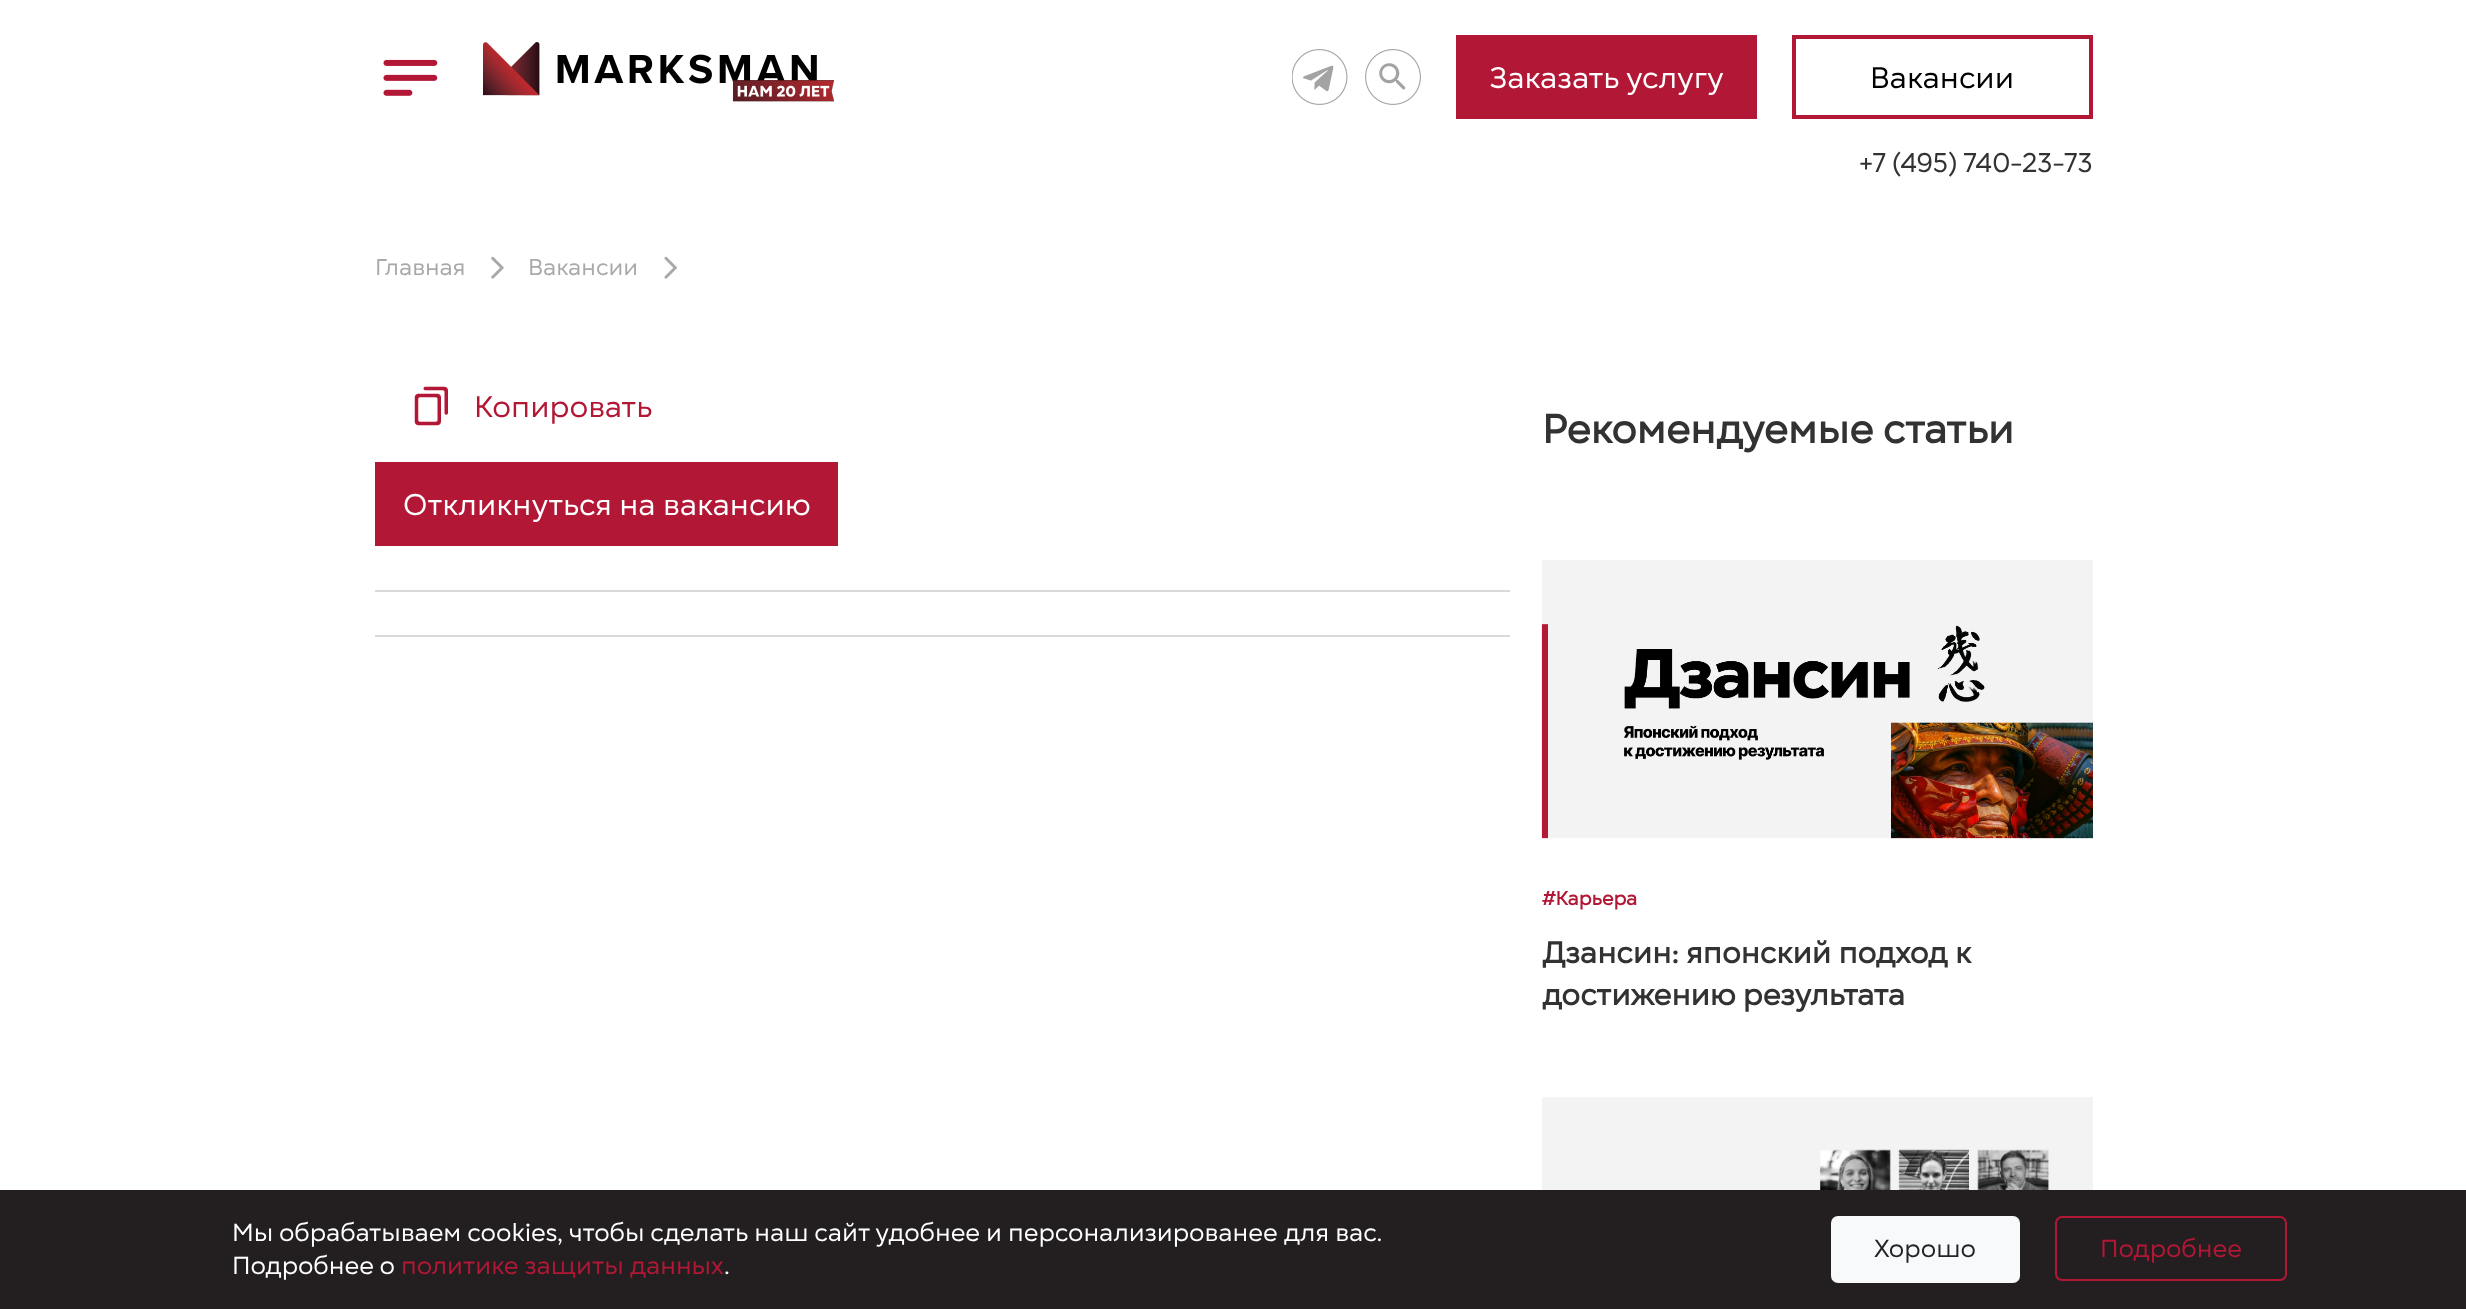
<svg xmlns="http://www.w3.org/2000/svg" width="2466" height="1309">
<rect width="100%" height="100%" fill="#fff"/>
<image x="383" y="59" width="55" height="37" href="media/1.png"/>
<image x="483" y="42" width="352" height="60" href="media/2.png"/>
<image x="1292" y="49" width="56" height="56" href="media/3.png"/>
<image x="1365" y="49" width="56" height="56" href="media/4.png"/>
<rect x="1456" y="35" width="301" height="84" fill="#b21736"/>
<text x="1489" y="88" style="font-family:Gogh;font-size:29.75px;fill:#fff">Заказать услугу</text>
<rect x="1794" y="37" width="297" height="80" fill="none" stroke="#b21736" stroke-width="4"/>
<text x="1870" y="88" style="font-family:Gogh;font-size:29.75px;fill:#000">Вакансии</text>
<text x="1859" y="172" style="font-family:Gogh;font-size:27.1px;fill:#323232">+7 (495) 740-23-73</text>
<text x="375" y="275" style="font-family:Gogh;font-size:22.75px;fill:#a9a9a9">Главная</text>
<image x="491" y="256" width="13" height="23" href="media/5.png"/>
<text x="528" y="275" style="font-family:Gogh;font-size:22.75px;fill:#a9a9a9">Вакансии</text>
<image x="664" y="256" width="13" height="23" href="media/6.png"/>
<image x="414" y="386" width="34" height="40" href="media/7.png"/>
<text x="474" y="417" style="font-family:Gogh;font-size:29.75px;fill:#b21736">Копировать</text>
<rect x="375" y="462" width="463" height="84" fill="#b21736"/>
<text x="403" y="515" style="font-family:Gogh;font-size:29.75px;fill:#fff">Откликнуться на вакансию</text>
<rect x="375" y="590" width="1135" height="2" fill="#d9d9d9"/>
<rect x="375" y="635" width="1135" height="2" fill="#d9d9d9"/>
<text x="1542" y="443" style="font-family:Gogh;font-size:40.25px;font-weight:bold;fill:#323232">Рекомендуемые статьи</text>
<image x="1541" y="560" width="552" height="279" href="media/8.png"/>
<text x="1542" y="905" style="font-family:Gogh;font-size:19.25px;font-weight:bold;fill:#b21736">#Карьера</text>
<text x="1542" y="963" style="font-family:Gogh;font-size:29.75px;font-weight:bold;fill:#323232">Дзансин: японский подход к</text>
<text x="1542" y="1005" style="font-family:Gogh;font-size:29.75px;font-weight:bold;fill:#323232">достижению результата</text>
<image x="1542" y="1097" width="551" height="93" href="media/9.png"/>
<rect y="1190" width="2466" height="119" fill="#231f20"/>
<text x="232" y="1241" style="font-family:Gogh;font-size:24.5px;fill:#fff">Мы обрабатываем cookies, чтобы сделать наш сайт удобнее и персонализированее для вас.</text>
<text x="232" y="1274" style="font-family:Gogh;font-size:24.5px;fill:#fff">Подробнее о</text>
<text x="401" y="1274" style="font-family:Gogh;font-size:24.5px;fill:#b21736">политике защиты данных</text>
<text x="724" y="1274" style="font-family:Gogh;font-size:24.5px;fill:#fff">.</text>
<rect x="1831" y="1216" width="189" height="67" rx="7" fill="#f8f9fa"/>
<text x="1874" y="1257" style="font-family:Gogh;font-size:24.5px;fill:#212529">Хорошо</text>
<rect x="2056" y="1217" width="230" height="63" rx="6" fill="none" stroke="#b21736" stroke-width="2"/>
<text x="2100" y="1257" style="font-family:Gogh;font-size:24.5px;fill:#b21736">Подробнее</text>
</svg>
